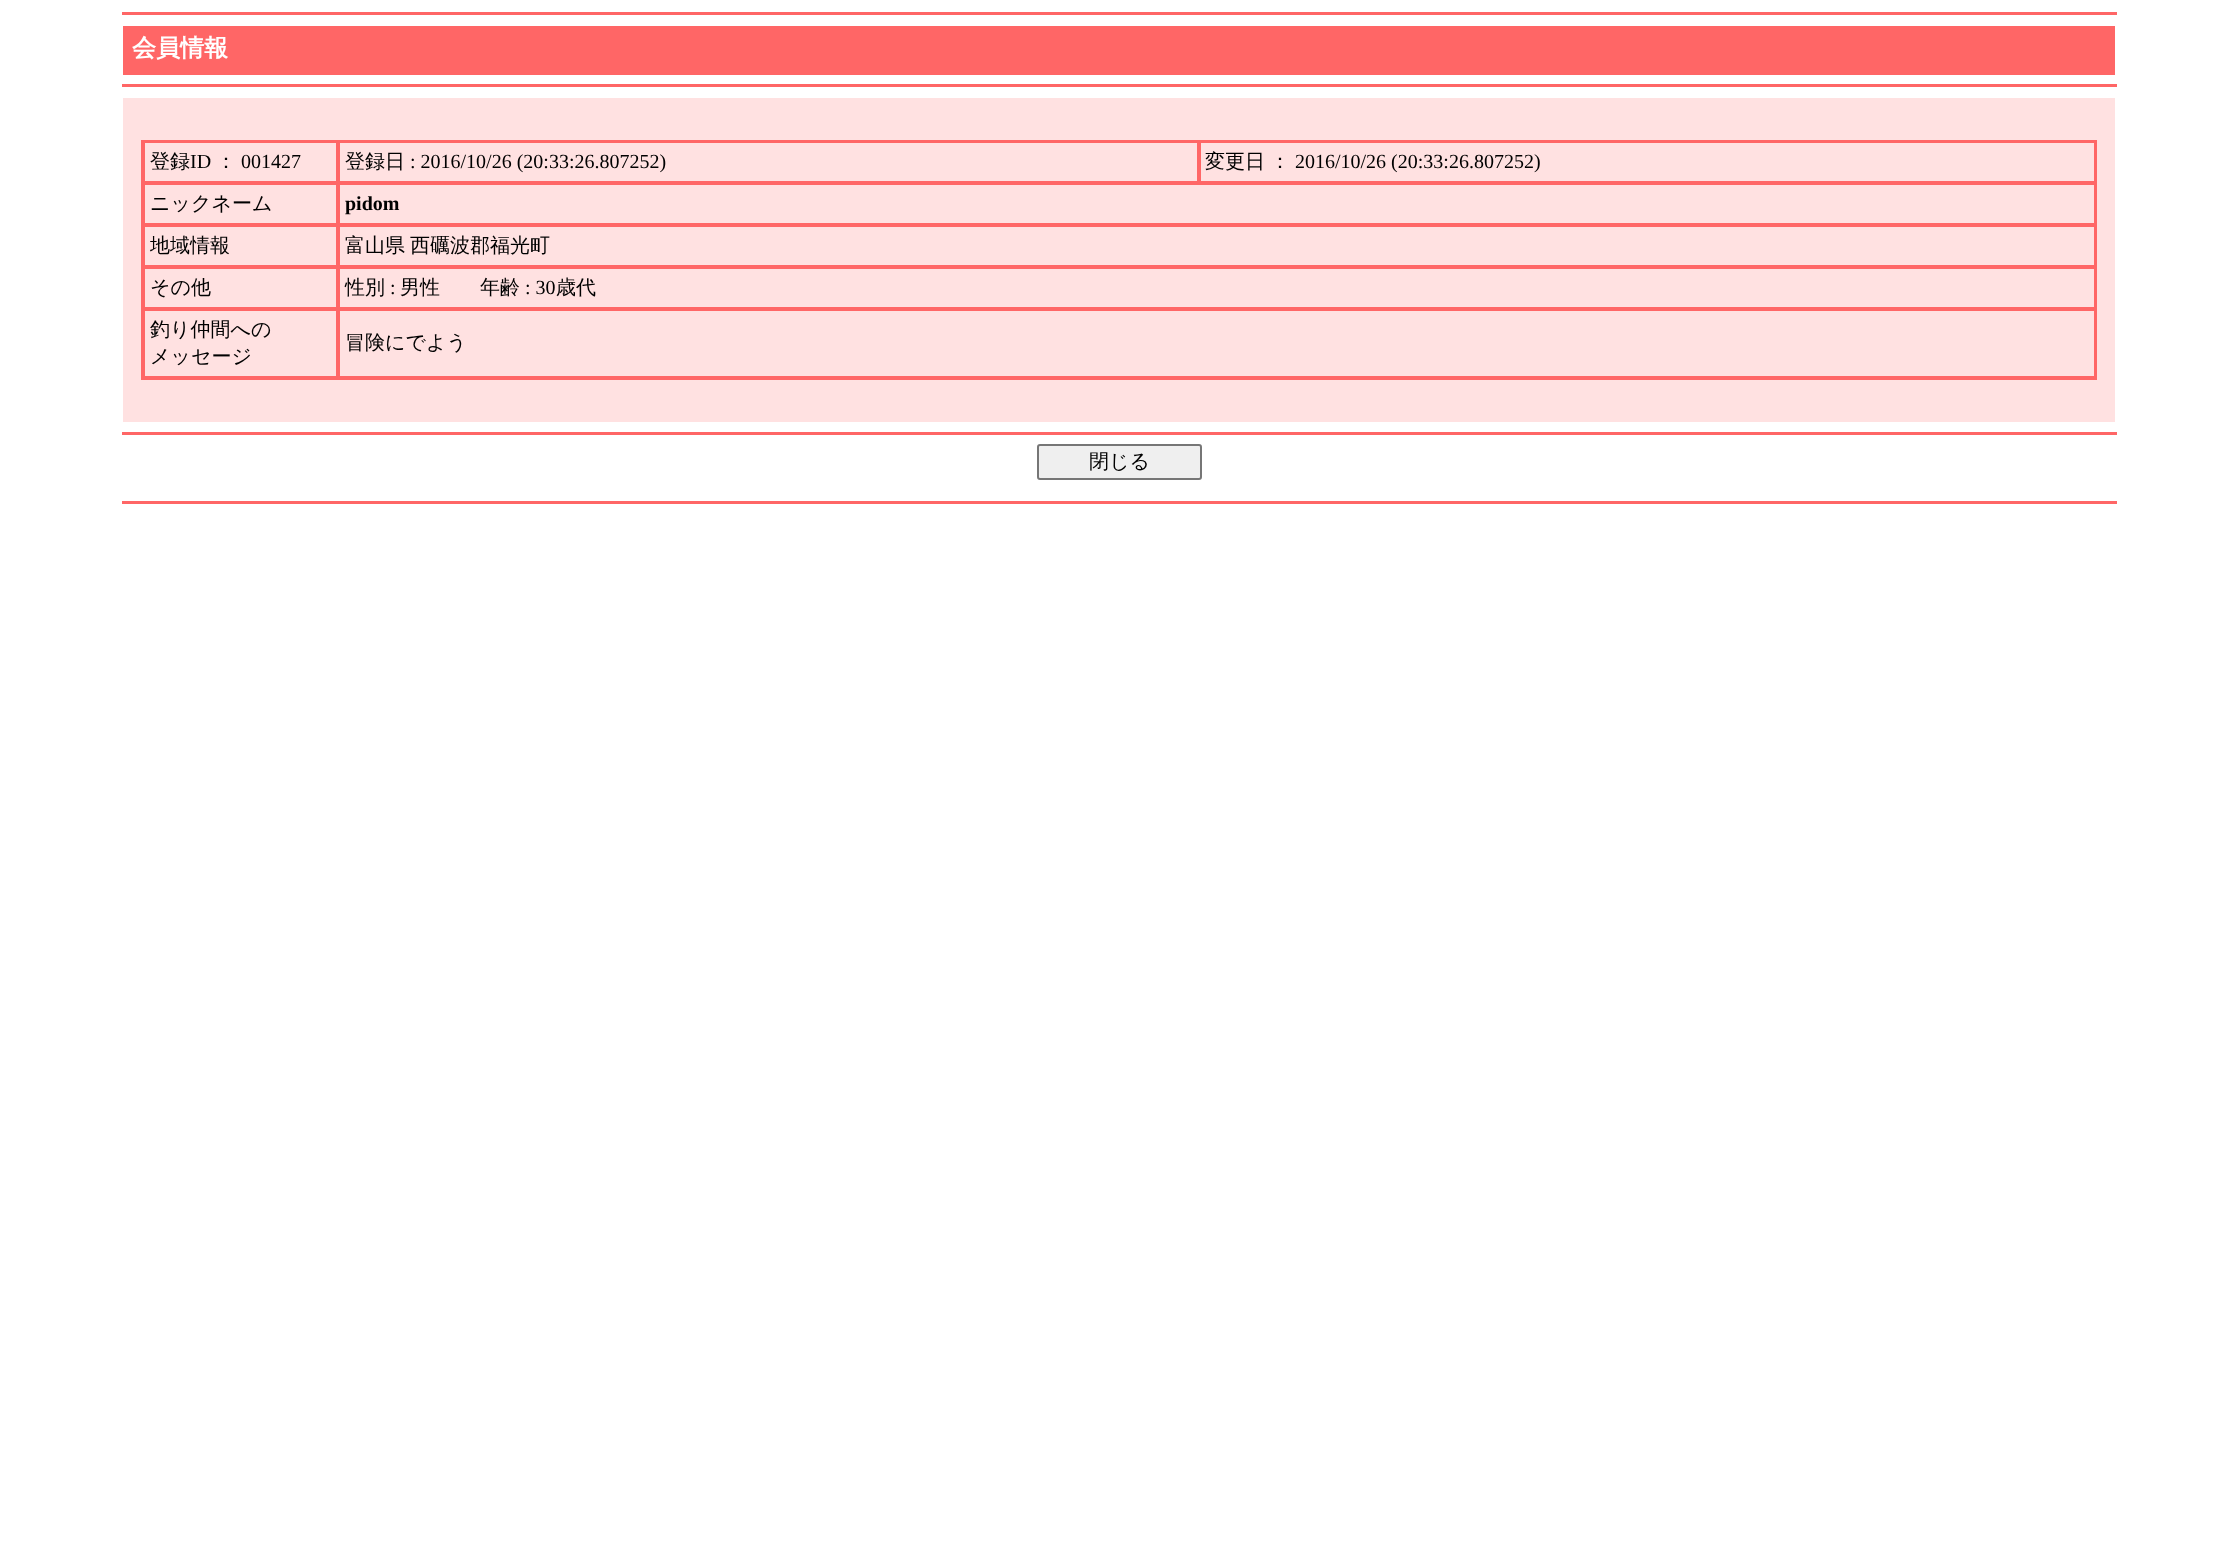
<svg xmlns="http://www.w3.org/2000/svg" width="2237" height="1559">
<rect width="100%" height="100%" fill="#fff"/>
<rect x="122" y="12" width="1995" height="3" fill="#f66"/>
<rect x="123" y="26" width="1992" height="49" fill="#f66"/>
<text x="132" y="56" style="font-family:WenQuanYi Zen Hei;font-size:24px;font-weight:bold;fill:#fff">会員情報</text>
<rect x="122" y="84" width="1995" height="3" fill="#f66"/>
<rect x="123" y="98" width="1992" height="324" fill="#ffe1e1"/>
<rect x="142" y="141" width="1954" height="238" fill="none" stroke="#f66" stroke-width="2"/>
<rect x="144" y="142" width="193" height="40" fill="none" stroke="#f66" stroke-width="2"/>
<text x="150" y="168" style="font-family:WenQuanYi Zen Hei;font-size:20px;font-weight:500;fill:#000">登録</text>
<text x="190" y="168" style="font-family:Liberation Serif;font-size:20px;fill:#000">ID</text>
<text x="216" y="168" style="font-family:WenQuanYi Zen Hei;font-size:20px;font-weight:500;fill:#000">：</text>
<text x="241" y="168" style="font-family:Liberation Serif;font-size:20px;fill:#000">001427</text>
<rect x="339" y="142" width="859" height="40" fill="none" stroke="#f66" stroke-width="2"/>
<text x="345" y="168" style="font-family:WenQuanYi Zen Hei;font-size:20px;font-weight:500;fill:#000">登録日</text>
<text x="410" y="168" style="font-family:Liberation Serif;font-size:20px;fill:#000">: 2016/10/26 (20:33:26.807252)</text>
<rect x="1200" y="142" width="895" height="40" fill="none" stroke="#f66" stroke-width="2"/>
<text x="1205" y="168" word-spacing="-1" style="font-family:WenQuanYi Zen Hei;font-size:20px;font-weight:500;fill:#000">変更日 ：</text>
<text x="1295" y="168" style="font-family:Liberation Serif;font-size:20px;fill:#000">2016/10/26 (20:33:26.807252)</text>
<rect x="144" y="184" width="193" height="40" fill="none" stroke="#f66" stroke-width="2"/>
<text x="150" y="210" style="font-family:WenQuanYi Zen Hei;font-size:20px;font-weight:500;fill:#000">ニックネーム</text>
<rect x="339" y="184" width="1756" height="40" fill="none" stroke="#f66" stroke-width="2"/>
<text x="345" y="210" style="font-family:Liberation Serif;font-size:20px;font-weight:bold;fill:#000">pidom</text>
<rect x="144" y="226" width="193" height="40" fill="none" stroke="#f66" stroke-width="2"/>
<text x="150" y="252" style="font-family:WenQuanYi Zen Hei;font-size:20px;font-weight:500;fill:#000">地域情報</text>
<rect x="339" y="226" width="1756" height="40" fill="none" stroke="#f66" stroke-width="2"/>
<text x="345" y="252" word-spacing="-1" style="font-family:WenQuanYi Zen Hei;font-size:20px;font-weight:500;fill:#000">富山県 西礪波郡福光町</text>
<rect x="144" y="268" width="193" height="40" fill="none" stroke="#f66" stroke-width="2"/>
<text x="150" y="294" style="font-family:WenQuanYi Zen Hei;font-size:20px;font-weight:500;fill:#000">その他</text>
<rect x="339" y="268" width="1756" height="40" fill="none" stroke="#f66" stroke-width="2"/>
<text x="345" y="294" style="font-family:WenQuanYi Zen Hei;font-size:20px;font-weight:500;fill:#000">性別</text>
<text x="390" y="294" style="font-family:Liberation Serif;font-size:20px;fill:#000">:</text>
<text x="400" y="294" style="font-family:WenQuanYi Zen Hei;font-size:20px;font-weight:500;fill:#000">男性　　年齢</text>
<text x="525" y="294" style="font-family:Liberation Serif;font-size:20px;fill:#000">: 30</text>
<text x="556" y="294" style="font-family:WenQuanYi Zen Hei;font-size:20px;font-weight:500;fill:#000">歳代</text>
<rect x="144" y="310" width="193" height="67" fill="none" stroke="#f66" stroke-width="2"/>
<text x="150" y="336" style="font-family:WenQuanYi Zen Hei;font-size:20px;font-weight:500;fill:#000">釣り仲間への</text>
<text x="150" y="363" style="font-family:WenQuanYi Zen Hei;font-size:20px;font-weight:500;fill:#000">メッセージ</text>
<rect x="339" y="310" width="1756" height="67" fill="none" stroke="#f66" stroke-width="2"/>
<text x="345" y="349" style="font-family:WenQuanYi Zen Hei;font-size:20px;font-weight:500;fill:#000">冒険にでよう</text>
<rect x="122" y="432" width="1995" height="3" fill="#f66"/>
<rect x="1038" y="445" width="163" height="34" rx="2" fill="#efefef" stroke="#767676" stroke-width="2"/>
<text x="1089" y="468" style="font-family:WenQuanYi Zen Hei;font-size:20px;font-weight:500;fill:#000">閉じる</text>
<rect x="122" y="501" width="1995" height="3" fill="#f66"/>
</svg>
